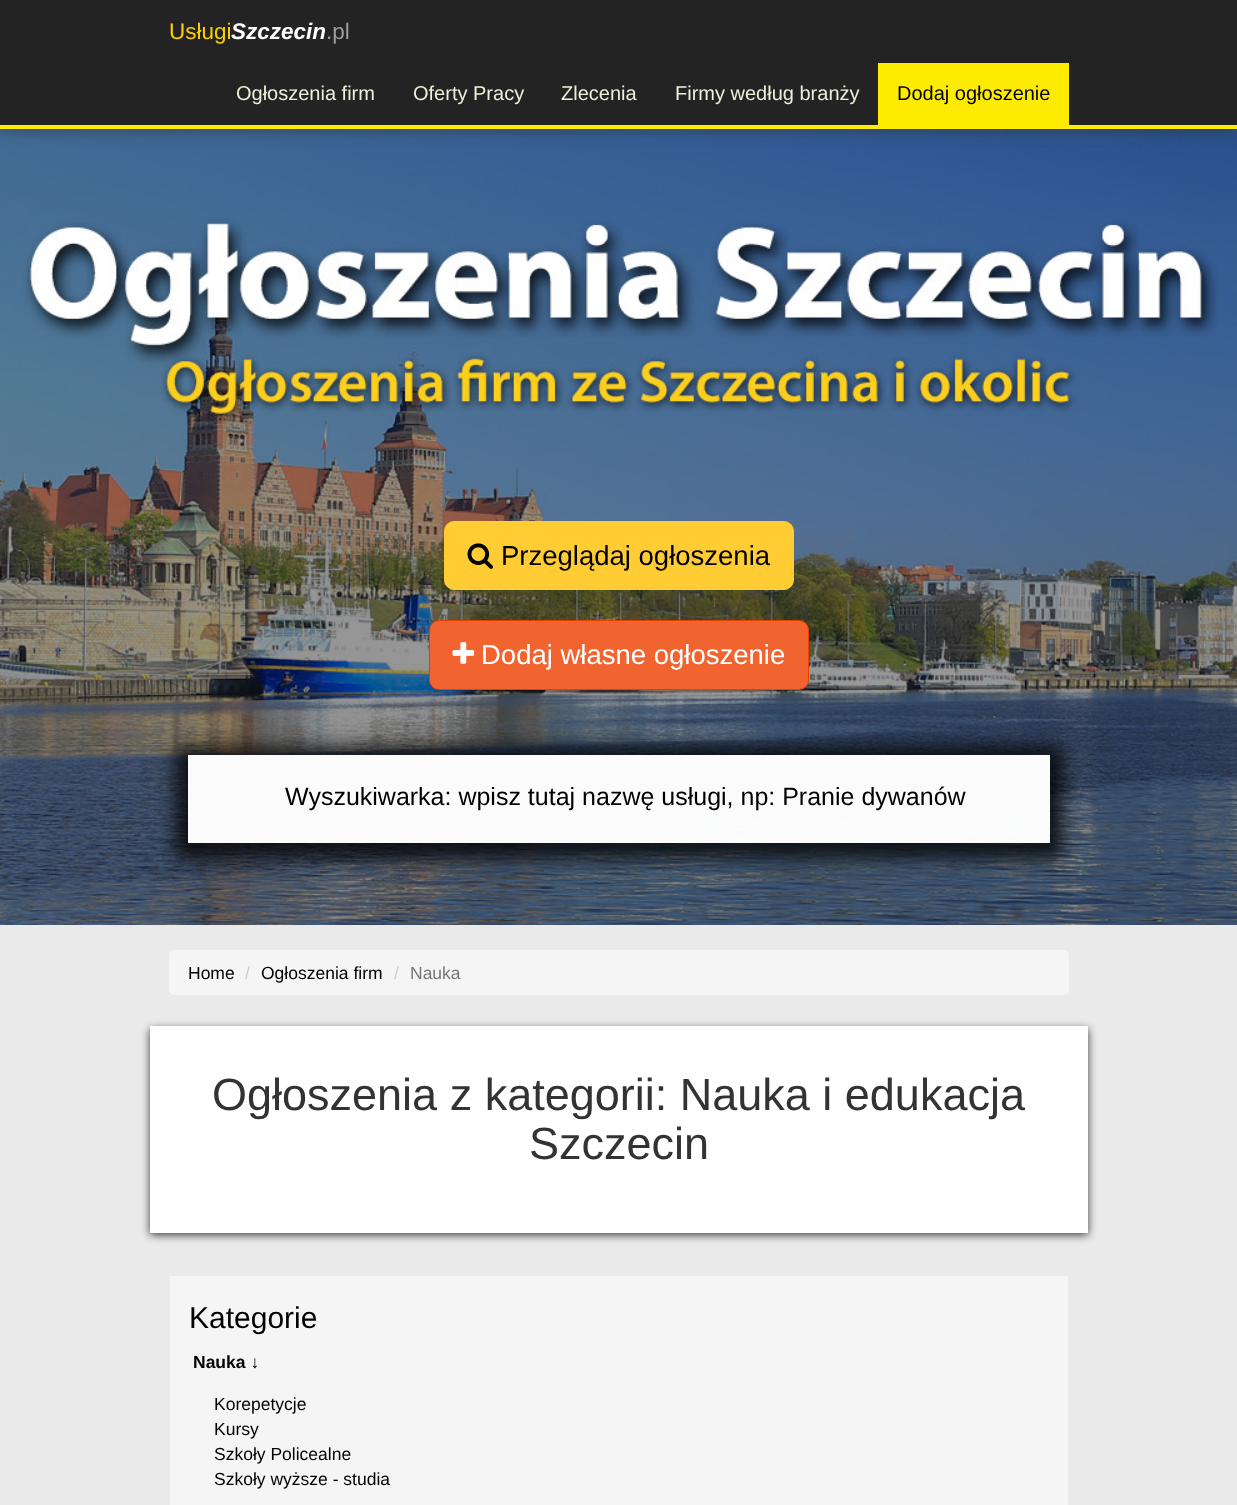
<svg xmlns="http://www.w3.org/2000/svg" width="1237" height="1505">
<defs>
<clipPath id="clip1"><path d="M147 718h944v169h-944zm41 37h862v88h-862z" clip-rule="evenodd"/></clipPath>
</defs>
<rect width="100%" height="100%" fill="#eaeaea"/>
<image x="0" y="129" width="1237" height="796" href="media/1.png"/>
<rect width="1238" height="129" fill="#323232bf" filter="blur(8px)"/>
<rect width="1237" height="125" fill="#232323"/>
<rect y="125" width="1237" height="4" fill="#fdeb00"/>
<text x="169" y="39" style="font-family:Liberation Sans;font-size:22.5px;fill:#f9ce00">Usługi</text>
<text x="231" y="39" style="font-family:Liberation Sans;font-size:22.5px;font-weight:bold;font-style:italic;fill:#fff">Szczecin</text>
<text x="326" y="39" style="font-family:Liberation Sans;font-size:22.5px;fill:#9d9d9d">.pl</text>
<text x="236" y="100" style="font-family:Liberation Sans;font-size:20px;fill:#efeed9">Ogłoszenia firm</text>
<text x="413" y="100" style="font-family:Liberation Sans;font-size:20px;fill:#efeed9">Oferty Pracy</text>
<text x="561" y="100" style="font-family:Liberation Sans;font-size:20px;fill:#efeed9">Zlecenia</text>
<text x="675" y="100" style="font-family:Liberation Sans;font-size:20px;fill:#efeed9">Firmy według branży</text>
<rect x="878" y="63" width="191" height="62" fill="#fdeb00"/>
<text x="897" y="100" style="font-family:Liberation Sans;font-size:20px;fill:#000">Dodaj ogłoszenie</text>
<rect x="444.5" y="521.5" width="349" height="68" rx="9.5" fill="#fc3" stroke="#fc3"/>
<image x="467" y="543" width="26" height="26" href="media/2.png"/>
<text x="501" y="565" style="font-family:Liberation Sans;font-size:27.5px;fill:#000">Przeglądaj ogłoszenia</text>
<rect x="429.5" y="620.5" width="379" height="69" rx="9.5" fill="#f2642f" stroke="#e73f00"/>
<image x="452" y="642" width="23" height="22" href="media/3.png"/>
<text x="481" y="664" style="font-family:Liberation Sans;font-size:27.5px;fill:#fff">Dodaj własne ogłoszenie</text>
<g clip-path="url(#clip1)">
<rect x="175" y="746" width="888" height="113" fill="#000000bf" filter="blur(9px)"/>
</g>
<rect x="188" y="755" width="862" height="88" fill="#fffffffa"/>
<text x="285" y="805" style="font-family:Liberation Sans;font-size:25px;fill:#000">Wyszukiwarka: wpisz tutaj nazwę usługi, np: Pranie dywanów</text>
<rect x="169" y="950" width="900" height="45" rx="5" fill="#f5f5f5"/>
<text x="188" y="979" style="font-family:Liberation Sans;font-size:17.5px;fill:#000">Home</text>
<text x="245" y="979" style="font-family:Liberation Sans;font-size:17.5px;fill:#ccc">/</text>
<text x="261" y="979" style="font-family:Liberation Sans;font-size:17.5px;fill:#000">Ogłoszenia firm</text>
<text x="394" y="979" style="font-family:Liberation Sans;font-size:17.5px;fill:#ccc">/</text>
<text x="410" y="979" style="font-family:Liberation Sans;font-size:17.5px;fill:#777">Nauka</text>
<rect x="150" y="1029" width="938" height="206" fill="#000000bf" filter="blur(4px)"/>
<rect x="150" y="1026" width="938" height="207" fill="#fff"/>
<text x="212" y="1110" style="font-family:Liberation Sans;font-size:45px;fill:#333">Ogłoszenia z kategorii: Nauka i edukacja</text>
<text x="529" y="1159" style="font-family:Liberation Sans;font-size:45px;fill:#333">Szczecin</text>
<rect x="170" y="1276" width="898" height="229" fill="#f5f5f5"/>
<text x="189" y="1328" style="font-family:Liberation Sans;font-size:30px;fill:#000">Kategorie</text>
<text x="193" y="1368" style="font-family:Liberation Sans;font-size:17.5px;font-weight:bold;fill:#000">Nauka ↓</text>
<text x="214" y="1410" style="font-family:Liberation Sans;font-size:17.5px;fill:#000">Korepetycje</text>
<text x="214" y="1435" style="font-family:Liberation Sans;font-size:17.5px;fill:#000">Kursy</text>
<text x="214" y="1460" style="font-family:Liberation Sans;font-size:17.5px;fill:#000">Szkoły Policealne</text>
<text x="214" y="1485" style="font-family:Liberation Sans;font-size:17.5px;fill:#000">Szkoły wyższe - studia</text>
</svg>
